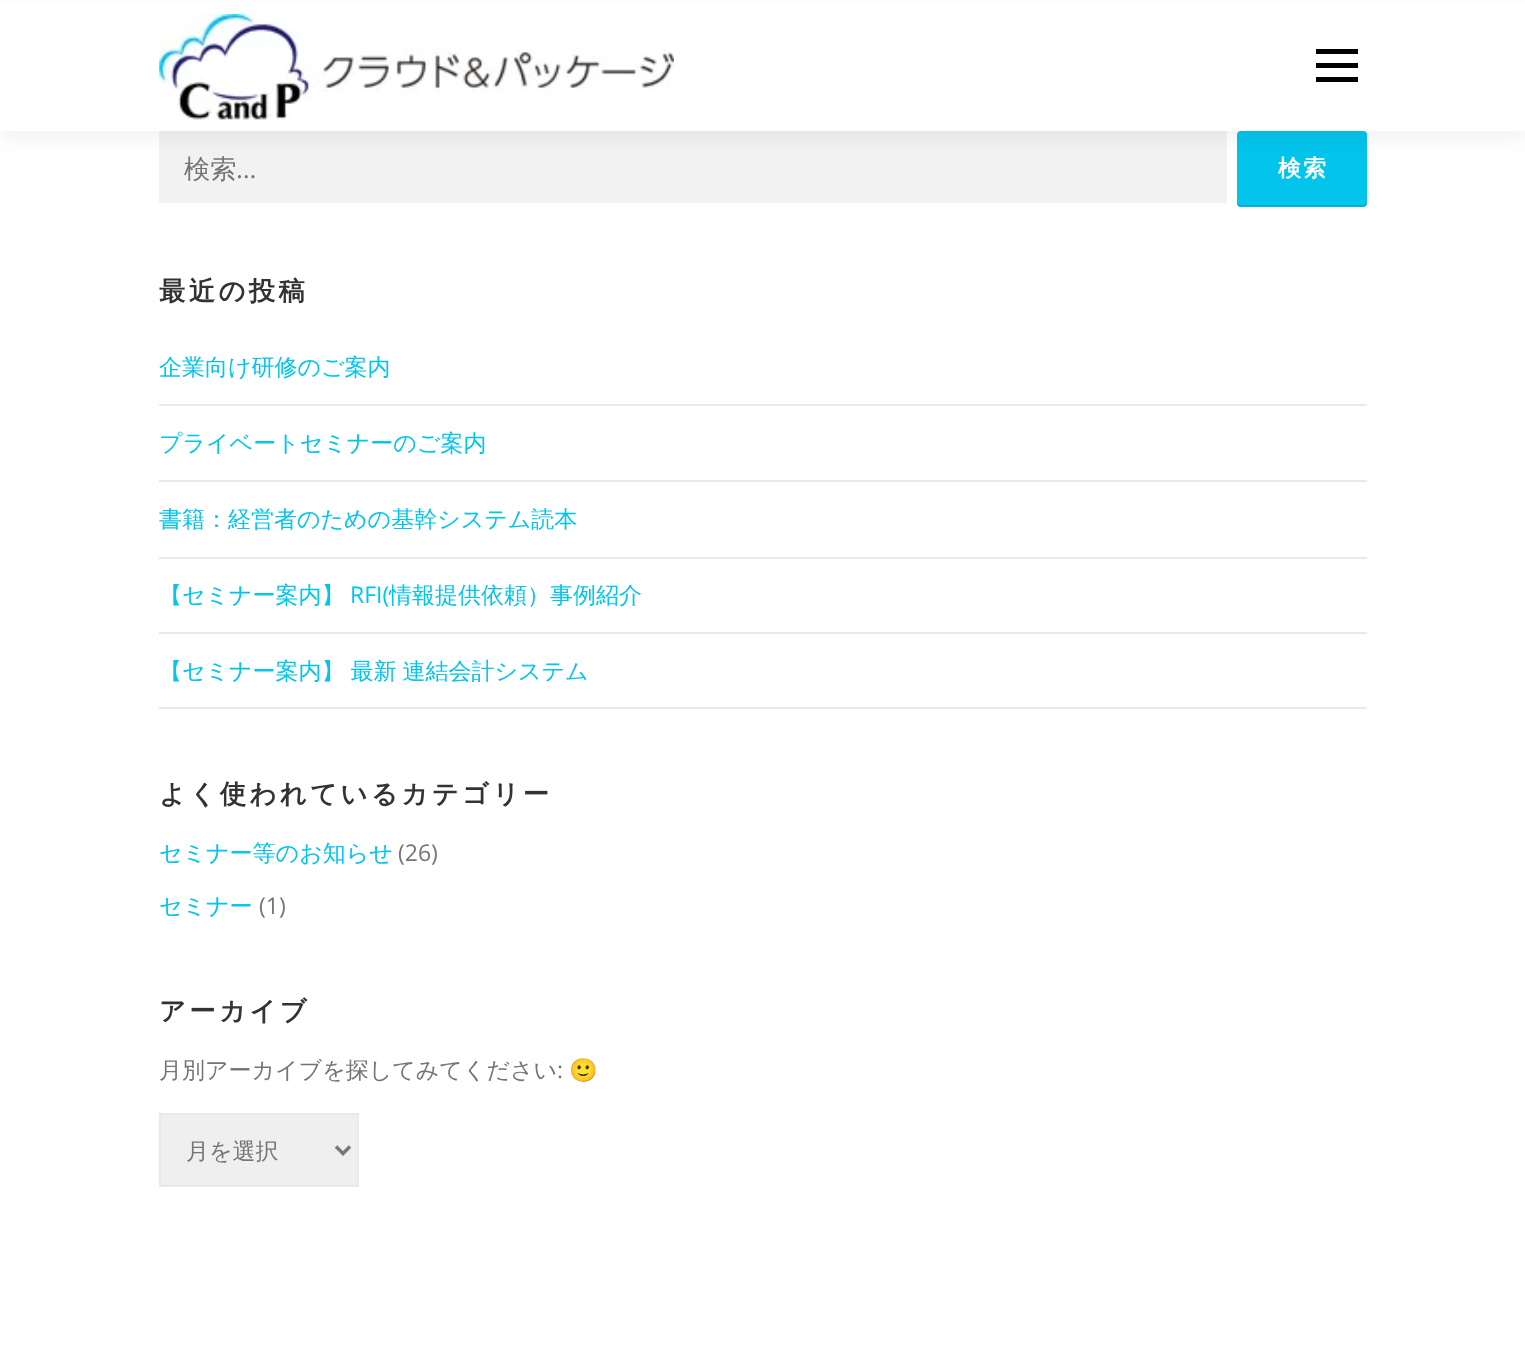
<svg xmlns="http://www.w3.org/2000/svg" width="1525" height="1372">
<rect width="100%" height="100%" fill="#fff"/>
<rect x="159" y="131" width="1068" height="72" fill="#f2f2f2"/>
<rect x="1237" y="131" width="130" height="76" rx="4" fill="#03c4eb"/>
<rect y="9" width="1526" height="131" fill="#3232320f" filter="blur(9px)"/>
<rect y="2" width="1525" height="129" fill="#fff"/>
<image x="159" y="14" width="515" height="106" href="media/1.png"/>
<rect x="1316" y="63" width="42" height="5" fill="#000"/>
<rect x="1316" y="49" width="42" height="5" fill="#000"/>
<rect x="1316" y="77" width="42" height="5" fill="#000"/>
<text x="184" y="178" style="font-family:WenQuanYi Zen Hei;font-size:26.25px;font-weight:500;fill:#757575">検索</text>
<text x="236" y="178" style="font-family:Open Sans;font-size:26.25px;fill:#757575">…</text>
<path d="M1237 201v2c0 2 2 4 4 4h122c2 0 4-2 4-4v-2c0 2-2 4-4 4h-122c-2 0-4-2-4-4z" fill="#0000001a"/>
<text x="1278" y="176" style="font-family:WenQuanYi Zen Hei;font-size:23px;font-weight:bold;letter-spacing:2px;fill:#fff">検索</text>
<text x="159" y="300" style="font-family:WenQuanYi Zen Hei;font-size:26.25px;font-weight:bold;letter-spacing:3.5px;fill:#333">最近の投稿</text>
<rect x="159" y="404" width="1208" height="2" fill="#e9e9e9"/>
<text x="159" y="375" style="font-family:WenQuanYi Zen Hei;font-size:23px;font-weight:500;fill:#03c4eb">企業向け研修のご案内</text>
<rect x="159" y="480" width="1208" height="2" fill="#e9e9e9"/>
<text x="159" y="451" style="font-family:WenQuanYi Zen Hei;font-size:23px;font-weight:500;fill:#03c4eb">プライベートセミナーのご案内</text>
<rect x="159" y="557" width="1208" height="2" fill="#e9e9e9"/>
<text x="159" y="527" style="font-family:WenQuanYi Zen Hei;font-size:23px;font-weight:500;fill:#03c4eb">書籍：経営者のための基幹システム読本</text>
<rect x="159" y="632" width="1208" height="2" fill="#e9e9e9"/>
<text x="159" y="603" style="font-family:WenQuanYi Zen Hei;font-size:23px;font-weight:500;fill:#03c4eb">【セミナー案内】</text>
<text x="350" y="603" style="font-family:Open Sans;font-size:23px;fill:#03c4eb">RFI(</text>
<text x="389" y="603" style="font-family:WenQuanYi Zen Hei;font-size:23px;font-weight:500;fill:#03c4eb">情報提供依頼）事例紹介</text>
<rect x="159" y="707" width="1208" height="2" fill="#e9e9e9"/>
<text x="159" y="679" word-spacing="-1" style="font-family:WenQuanYi Zen Hei;font-size:23px;font-weight:500;fill:#03c4eb">【セミナー案内】 最新 連結会計システム</text>
<text x="159" y="803" style="font-family:WenQuanYi Zen Hei;font-size:26.25px;font-weight:bold;letter-spacing:3.5px;fill:#333">よく使われているカテゴリー</text>
<text x="159" y="861" style="font-family:WenQuanYi Zen Hei;font-size:23px;font-weight:500;fill:#03c4eb">セミナー等のお知らせ</text>
<text x="398" y="861" style="font-family:Open Sans;font-size:23px;fill:#757575">(26)</text>
<text x="159" y="914" style="font-family:WenQuanYi Zen Hei;font-size:23px;font-weight:500;fill:#03c4eb">セミナー</text>
<text x="259" y="914" style="font-family:Open Sans;font-size:23px;fill:#757575">(1)</text>
<text x="159" y="1020" style="font-family:WenQuanYi Zen Hei;font-size:26.25px;font-weight:bold;letter-spacing:3.5px;fill:#333">アーカイブ</text>
<text x="159" y="1078" style="font-family:WenQuanYi Zen Hei;font-size:23px;font-weight:500;fill:#757575">月別アーカイブを探してみてください</text>
<text x="557" y="1078" style="font-family:Open Sans;font-size:23px;fill:#757575">:</text>
<text x="569" y="1078" style="font-family:Noto Color Emoji;font-size:23px;fill:#757575">🙂</text>
<rect x="160" y="1114" width="198" height="72" fill="#efefef" stroke="#e9e9e9" stroke-width="2"/>
<path d="M336 1146.5l7 7l7-7" fill="none" stroke="#777" stroke-width="3.5"/>
<text x="186" y="1159" style="font-family:WenQuanYi Zen Hei;font-size:23px;font-weight:500;fill:#757575">月を選択</text>
</svg>
